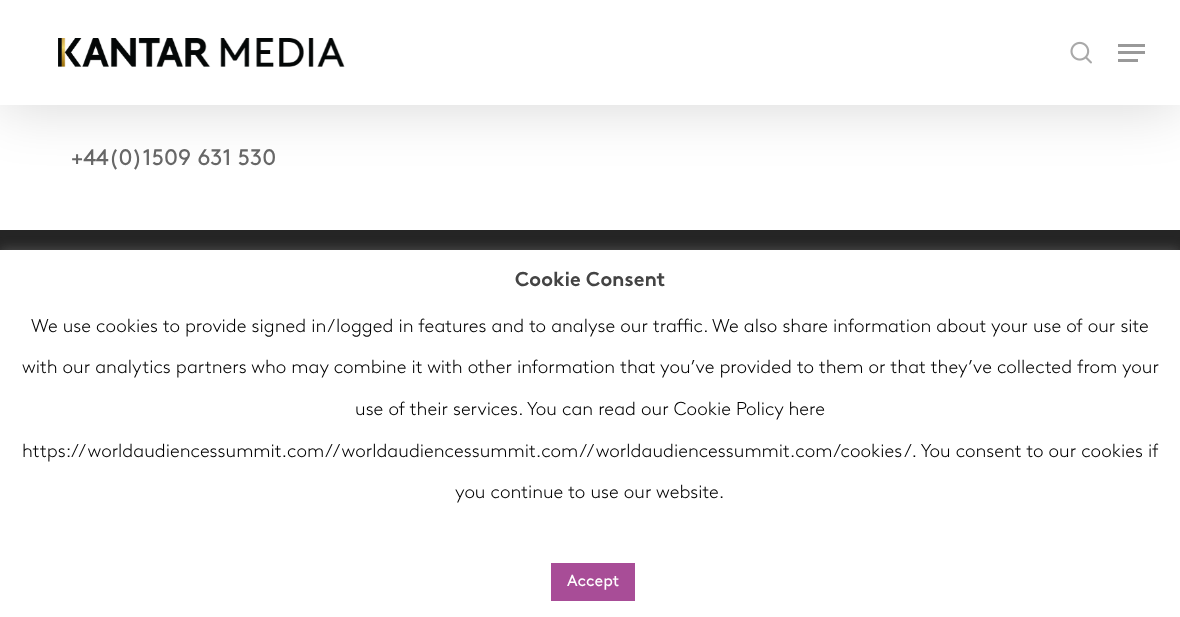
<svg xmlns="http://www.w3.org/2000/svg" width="1180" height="617">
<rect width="100%" height="100%" fill="#fff"/>
<rect y="4" width="1180" height="105" fill="#00000026" filter="blur(28px)"/>
<rect width="1180" height="105" fill="#fff"/>
<image x="58" y="38" width="287" height="29" href="media/1.png"/>
<image x="1070" y="41" width="22" height="23" href="media/2.png"/>
<rect x="1118" y="44" width="27" height="3" fill="#999"/>
<rect x="1118" y="59" width="20" height="3" fill="#999"/>
<rect x="1118" y="51" width="27" height="3" fill="#999"/>
<text x="71" y="165" style="font-family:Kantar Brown;font-size:22.5px;fill:#676767">+44(0)1509 631 530</text>
<rect y="230" width="1180" height="20" fill="#252525"/>
<rect y="249" width="1180" height="367" fill="#acabab4d" filter="blur(6px)"/>
<rect y="250" width="1180" height="367" fill="#fff"/>
<text x="515" y="286" style="font-family:Kantar Brown;font-size:20px;font-weight:bold;fill:#444">Cookie Consent</text>
<text x="31" y="332" style="font-family:Kantar Brown;font-size:18.75px;font-weight:300;fill:#000">We use cookies to provide signed in/logged in features and to analyse our traffic. We also share information about your use of our site</text>
<text x="22" y="373" style="font-family:Kantar Brown;font-size:18.75px;font-weight:300;fill:#000">with our analytics partners who may combine it with other information that you’ve provided to them or that they’ve collected from your</text>
<text x="355" y="415" style="font-family:Kantar Brown;font-size:18.75px;font-weight:300;fill:#000">use of their services. You can read our Cookie Policy here</text>
<text x="22" y="457" style="font-family:Kantar Brown;font-size:18.75px;font-weight:300;fill:#000">https://worldaudiencessummit.com//worldaudiencessummit.com//worldaudiencessummit.com/cookies/. You consent to our cookies if</text>
<text x="455" y="498" style="font-family:Kantar Brown;font-size:18.75px;font-weight:300;fill:#000">you continue to use our website.</text>
<rect x="551" y="563" width="84" height="38" fill="#a84d97"/>
<text x="567" y="586" style="font-family:Kantar Brown;font-size:16px;fill:#fff">Accept</text>
</svg>
